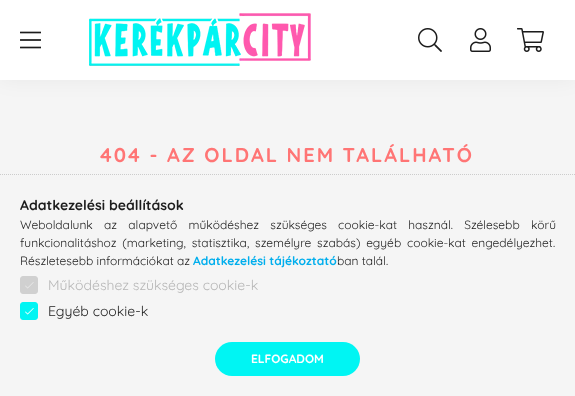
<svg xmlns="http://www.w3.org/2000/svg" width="575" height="396">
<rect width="100%" height="100%" fill="#f5f5f5"/>
<rect width="575" height="80" fill="#0000000d" filter="blur(10px)"/>
<rect width="575" height="80" fill="#fff"/>
<image x="20" y="31" width="21" height="18" href="media/1.png"/>
<image x="89" y="13" width="222" height="53" href="media/2.png"/>
<image x="418" y="28" width="24" height="24" href="media/3.png"/>
<image x="470" y="28" width="21" height="24" href="media/4.png"/>
<image x="517" y="28" width="27" height="24" href="media/5.png"/>
<text x="100" y="162" style="font-family:Quicksand;font-size:20px;font-weight:bold;letter-spacing:2px;fill:#ff7575">404 - AZ OLDAL NEM TALÁLHATÓ</text>
<path d="M0 174.5h575" fill="none" stroke="#ccc" stroke-dasharray="1 1"/>
<text x="20" y="210" style="font-family:Quicksand;font-size:14px;font-weight:bold;fill:#1c1c1c">Adatkezelési beállítások</text>
<text x="20" y="229" word-spacing="8" style="font-family:Quicksand;font-size:12px;fill:#1c1c1c">Weboldalunk az alapvető működéshez szükséges cookie-kat használ. Szélesebb körű</text>
<text x="20" y="247" word-spacing="2.5" style="font-family:Quicksand;font-size:12px;fill:#1c1c1c">funkcionalitáshoz (marketing, statisztika, személyre szabás) egyéb cookie-kat engedélyezhet.</text>
<text x="20" y="265" style="font-family:Quicksand;font-size:12px;fill:#1c1c1c">Részletesebb információkat az</text>
<text x="193" y="265" style="font-family:Quicksand;font-size:12px;font-weight:bold;fill:#00aeed">Adatkezelési tájékoztató</text>
<text x="337" y="265" style="font-family:Quicksand;font-size:12px;fill:#1c1c1c">ban talál.</text>
<rect x="20.5" y="276.5" width="17" height="17" rx="2.5" fill="#d0d0d0" stroke="#d0d0d0"/>
<image x="25" y="282" width="9" height="7" href="media/6.png"/>
<text x="48" y="290" style="font-family:Quicksand;font-size:14px;fill:#b6b6b6">Működéshez szükséges cookie-k</text>
<rect x="20.5" y="302.5" width="17" height="17" rx="2.5" fill="#00f5f3" stroke="#00f5f3"/>
<image x="25" y="308" width="9" height="7" href="media/7.png"/>
<text x="48" y="316" style="font-family:Quicksand;font-size:14px;fill:#1c1c1c">Egyéb cookie-k</text>
<rect x="215" y="342" width="145" height="34" rx="17" fill="#00f5f3"/>
<text x="251" y="363" style="font-family:Quicksand;font-size:12px;font-weight:bold;fill:#fff">ELFOGADOM</text>
</svg>
